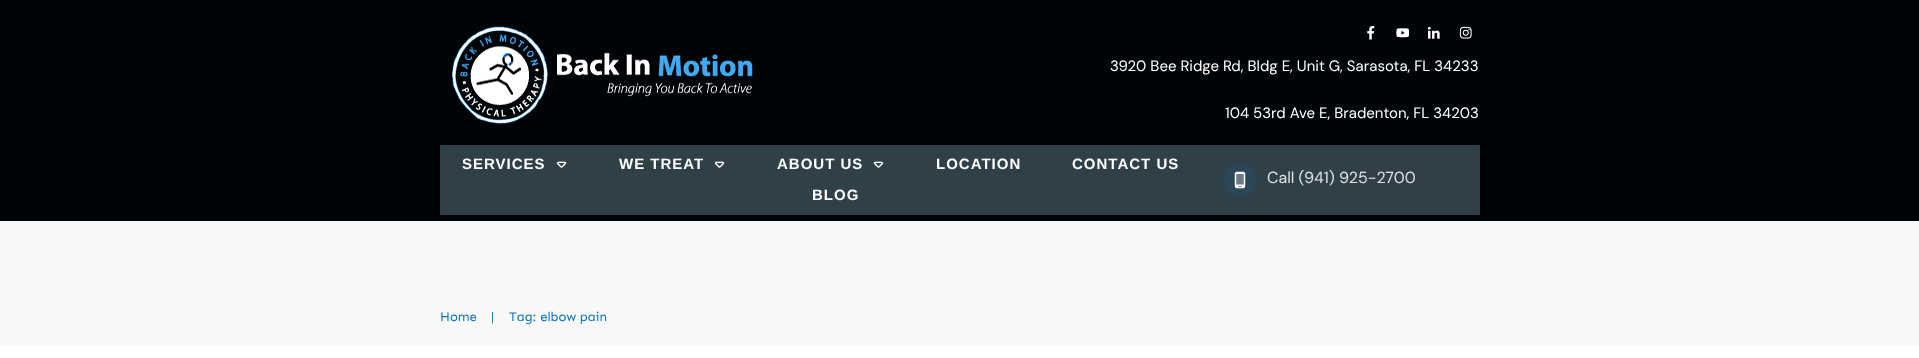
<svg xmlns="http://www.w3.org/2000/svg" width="1919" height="358">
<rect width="100%" height="100%" fill="#fff"/>
<rect width="1919" height="221" fill="#000406"/>
<image x="452" y="26" width="301" height="98" href="media/1.png"/>
<image x="1367" y="26" width="8" height="14" href="media/2.png"/>
<image x="1396" y="28" width="13" height="10" href="media/3.png"/>
<image x="1427" y="26" width="13" height="13" href="media/4.png"/>
<image x="1459" y="26" width="13" height="13" href="media/5.png"/>
<text x="1110" y="71" style="font-family:DM Sans;font-size:15px;fill:#fff">3920 Bee Ridge Rd, Bldg E, Unit G, Sarasota, FL 34233</text>
<text x="1225" y="118" style="font-family:DM Sans;font-size:15px;fill:#fff">104 53rd Ave E, Bradenton, FL 34203</text>
<rect x="440" y="145" width="1040" height="70" fill="#304048"/>
<text x="462" y="169" style="font-family:Liberation Sans;font-size:15px;font-weight:bold;letter-spacing:1px;fill:#fff">SERVICES</text>
<image x="556" y="161" width="11" height="7" href="media/6.png"/>
<text x="619" y="169" style="font-family:Liberation Sans;font-size:15px;font-weight:bold;letter-spacing:1px;fill:#fff">WE TREAT</text>
<image x="714" y="161" width="11" height="7" href="media/6.png"/>
<text x="777" y="169" style="font-family:Liberation Sans;font-size:15px;font-weight:bold;letter-spacing:1px;fill:#fff">ABOUT US</text>
<image x="873" y="161" width="11" height="7" href="media/6.png"/>
<text x="936" y="169" style="font-family:Liberation Sans;font-size:15px;font-weight:bold;letter-spacing:1px;fill:#fff">LOCATION</text>
<text x="1072" y="169" style="font-family:Liberation Sans;font-size:15px;font-weight:bold;letter-spacing:1px;fill:#fff">CONTACT US</text>
<text x="812" y="200" style="font-family:Liberation Sans;font-size:15px;font-weight:bold;letter-spacing:1px;fill:#fff">BLOG</text>
<circle cx="1240" cy="180" r="17" fill="#2b4656"/>
<image x="1234" y="171" width="12" height="18" href="media/7.png"/>
<text x="1267" y="183" style="font-family:DM Sans;font-size:16px;fill:#e0e2e4">Call (941) 925-2700</text>
<rect y="221" width="1919" height="124" fill="#f8f8f8"/>
<text x="440" y="321" style="font-family:Sen;font-size:13px;fill:#0873ba">Home</text>
<text x="491" y="321" style="font-family:Sen;font-size:13px;fill:#0873ba">|</text>
<text x="509" y="321" style="font-family:Sen;font-size:13px;fill:#0873ba">Tag: elbow pain</text>
</svg>
